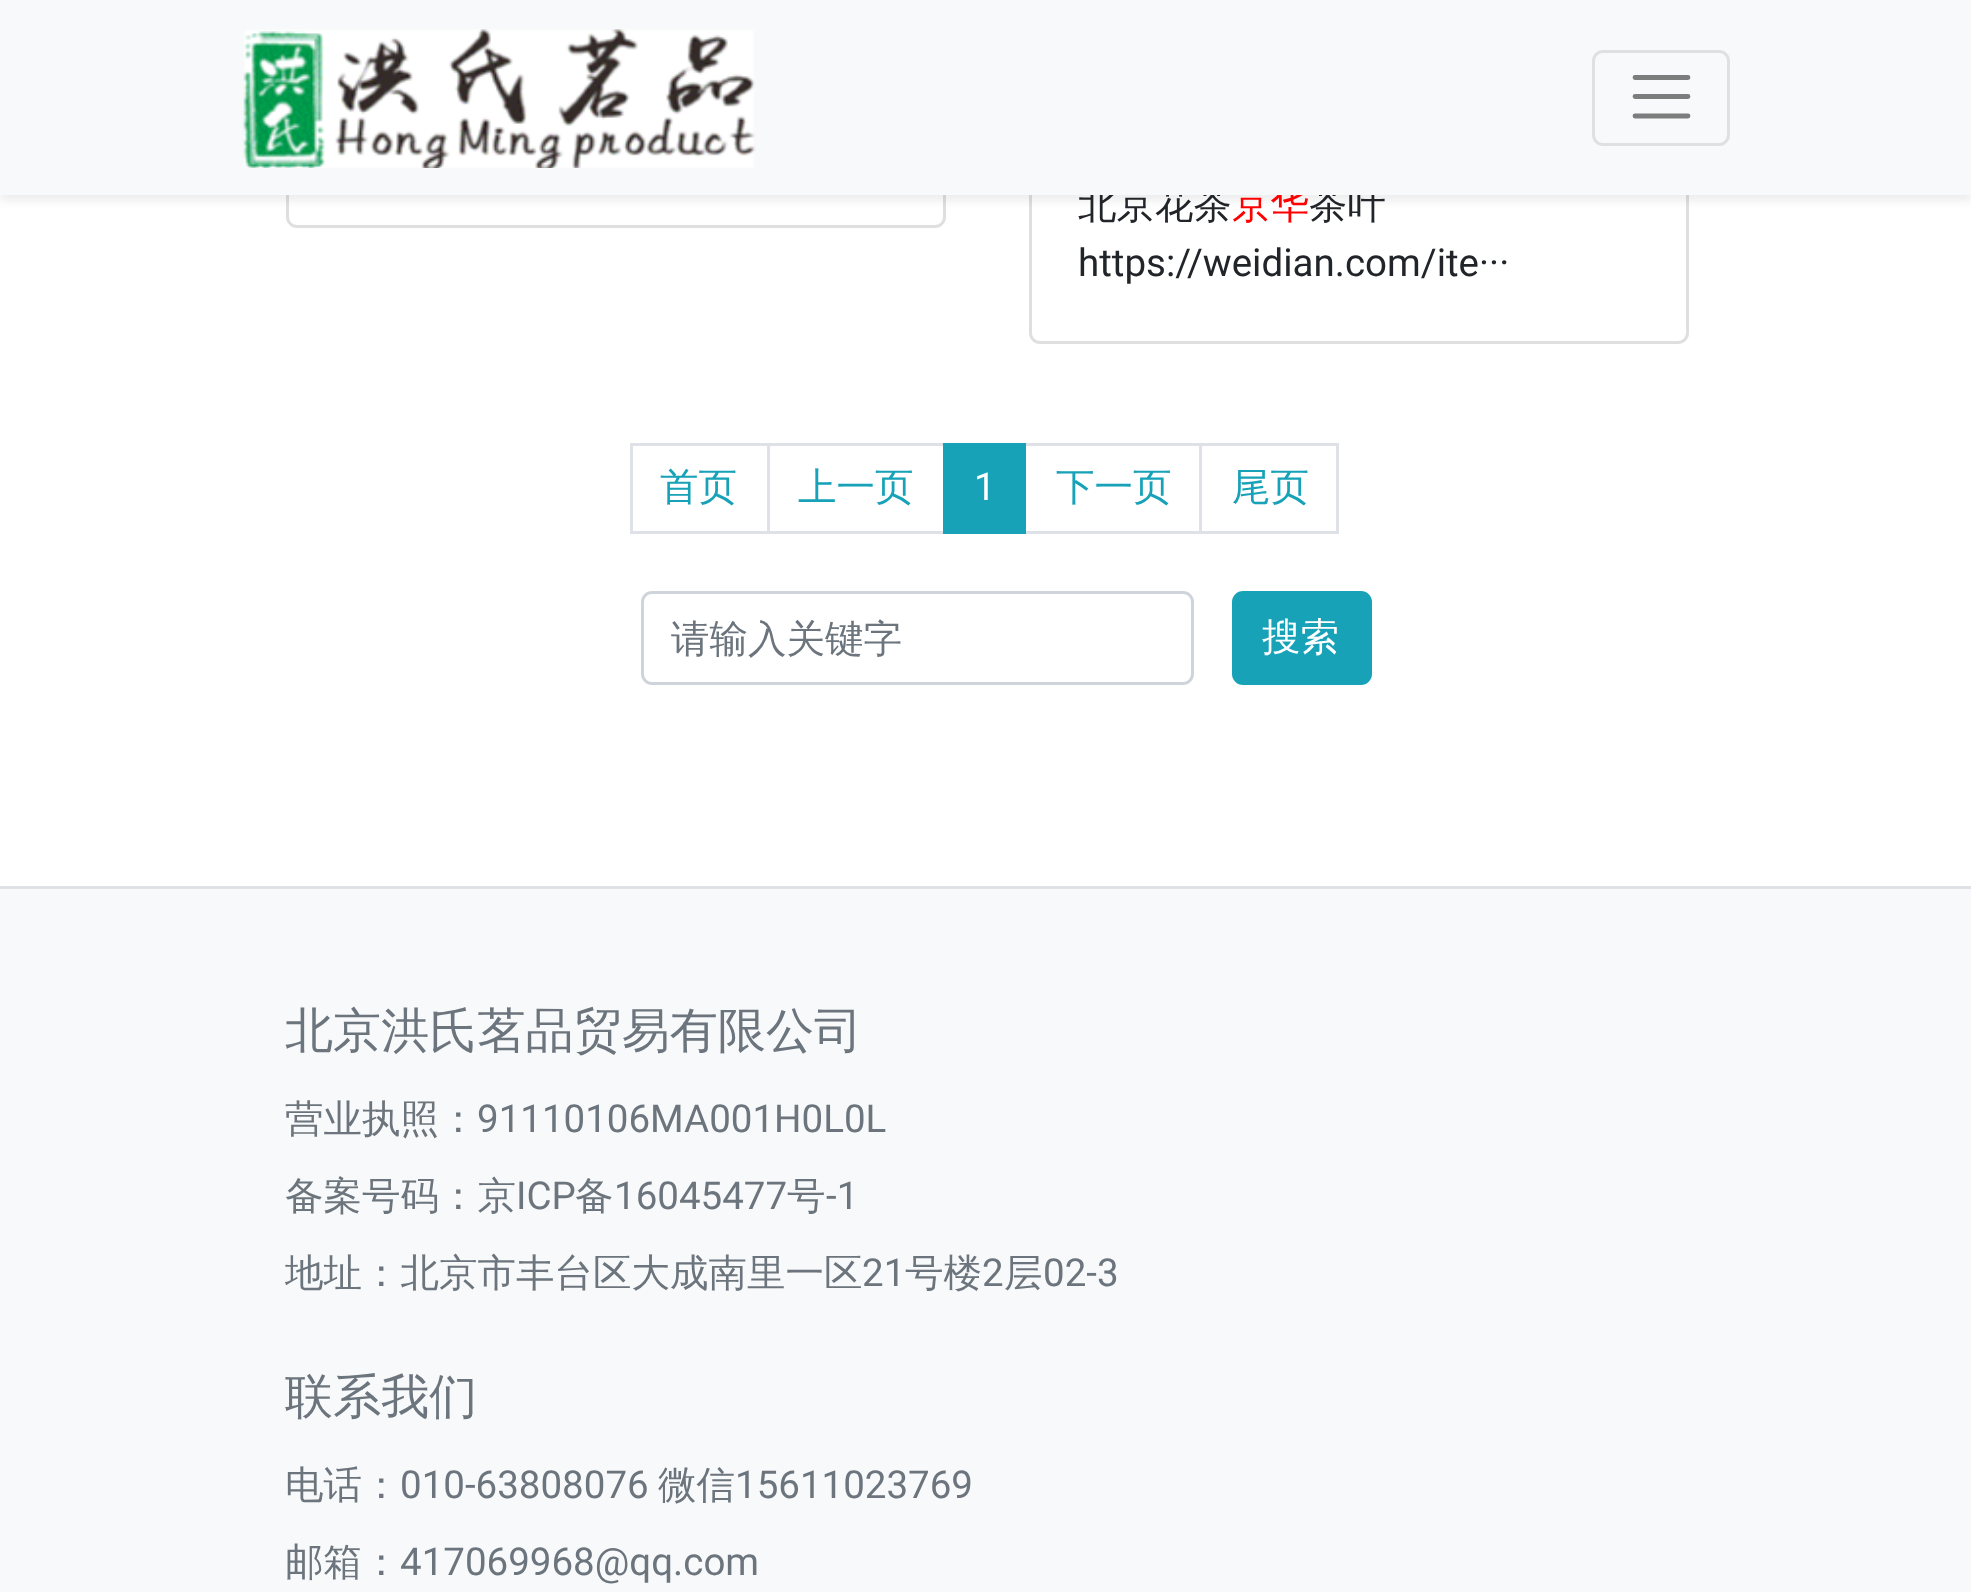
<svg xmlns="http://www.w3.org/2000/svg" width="1971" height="1592">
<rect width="100%" height="100%" fill="#fff"/>
<rect x="287.5" y="-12.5" width="657" height="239" rx="9.5" fill="none" stroke="#dfdfdf" stroke-width="3"/>
<rect x="1030.5" y="-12.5" width="657" height="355" rx="9.5" fill="none" stroke="#dfdfdf" stroke-width="3"/>
<rect y="6" width="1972" height="195" fill="#00000012" filter="blur(5px)"/>
<text x="1078" y="218" style="font-family:WenQuanYi Zen Hei;font-size:38.5px;font-weight:500;fill:#212529">北京花茶</text>
<text x="1232" y="218" style="font-family:WenQuanYi Zen Hei;font-size:38.5px;font-weight:500;fill:#f00">京华</text>
<text x="1309" y="218" style="font-family:WenQuanYi Zen Hei;font-size:38.5px;font-weight:500;fill:#212529">茶叶</text>
<rect width="1971" height="195" fill="#f8f9fa"/>
<image x="243" y="29" width="513" height="139" href="media/1.png"/>
<rect x="1593.5" y="51.5" width="135" height="93" rx="9.5" fill="none" stroke="#dfe0e1" stroke-width="3"/>
<path d="M1635 77.5h53m-53 19h53m-53 19.5h53" fill="none" stroke="#7c7d7d" stroke-width="4.8" stroke-linecap="round"/>
<text x="1078" y="276" style="font-family:Roboto;font-size:38.5px;fill:#212529">https://weidian.com/ite···</text>
<rect x="631.5" y="444.5" width="137" height="88" fill="none" stroke="#dee2e6" stroke-width="3"/>
<text x="660" y="500" style="font-family:WenQuanYi Zen Hei;font-size:38.5px;font-weight:500;fill:#17a2b8">首页</text>
<rect x="768.5" y="444.5" width="176" height="88" fill="none" stroke="#dee2e6" stroke-width="3"/>
<text x="798" y="500" style="font-family:WenQuanYi Zen Hei;font-size:38.5px;font-weight:500;fill:#17a2b8">上一页</text>
<rect x="1024.5" y="444.5" width="176" height="88" fill="none" stroke="#dee2e6" stroke-width="3"/>
<rect x="943" y="443" width="83" height="91" fill="#17a2b8"/>
<text x="974" y="500" style="font-family:Roboto;font-size:38.5px;fill:#fff">1</text>
<text x="1056" y="500" style="font-family:WenQuanYi Zen Hei;font-size:38.5px;font-weight:500;fill:#17a2b8">下一页</text>
<rect x="1200.5" y="444.5" width="137" height="88" fill="none" stroke="#dee2e6" stroke-width="3"/>
<text x="1232" y="500" style="font-family:WenQuanYi Zen Hei;font-size:38.5px;font-weight:500;fill:#17a2b8">尾页</text>
<rect x="642.5" y="592.5" width="550" height="91" rx="9.5" fill="none" stroke="#ced4da" stroke-width="3"/>
<text x="671" y="652" style="font-family:WenQuanYi Zen Hei;font-size:38.5px;font-weight:500;fill:#6c757d">请输入关键字</text>
<rect x="1233.5" y="592.5" width="137" height="91" rx="9.5" fill="#17a2b8" stroke="#17a2b8" stroke-width="3"/>
<text x="1262" y="650" style="font-family:WenQuanYi Zen Hei;font-size:38.5px;font-weight:500;fill:#fff">搜索</text>
<rect y="889" width="1971" height="703" fill="#f8f9fa"/>
<rect y="886" width="1971" height="3" fill="#dee2e6"/>
<text x="285" y="1047" style="font-family:WenQuanYi Zen Hei;font-size:48.1px;font-weight:500;fill:#6c757d">北京洪氏茗品贸易有限公司</text>
<text x="285" y="1132" style="font-family:WenQuanYi Zen Hei;font-size:38.5px;font-weight:500;fill:#6c757d">营业执照：</text>
<text x="477" y="1132" style="font-family:Roboto;font-size:38.5px;fill:#6c757d">91110106MA001H0L0L</text>
<text x="285" y="1209" style="font-family:WenQuanYi Zen Hei;font-size:38.5px;font-weight:500;fill:#6c757d">备案号码：京</text>
<text x="516" y="1209" style="font-family:Roboto;font-size:38.5px;fill:#6c757d">ICP</text>
<text x="575" y="1209" style="font-family:WenQuanYi Zen Hei;font-size:38.5px;font-weight:500;fill:#6c757d">备</text>
<text x="614" y="1209" style="font-family:Roboto;font-size:38.5px;fill:#6c757d">16045477</text>
<text x="787" y="1209" style="font-family:WenQuanYi Zen Hei;font-size:38.5px;font-weight:500;fill:#6c757d">号</text>
<text x="826" y="1209" style="font-family:Roboto;font-size:38.5px;fill:#6c757d">-1</text>
<text x="285" y="1286" style="font-family:WenQuanYi Zen Hei;font-size:38.5px;font-weight:500;fill:#6c757d">地址：北京市丰台区大成南里一区</text>
<text x="862" y="1286" style="font-family:Roboto;font-size:38.5px;fill:#6c757d">21</text>
<text x="905" y="1286" style="font-family:WenQuanYi Zen Hei;font-size:38.5px;font-weight:500;fill:#6c757d">号楼</text>
<text x="982" y="1286" style="font-family:Roboto;font-size:38.5px;fill:#6c757d">2</text>
<text x="1004" y="1286" style="font-family:WenQuanYi Zen Hei;font-size:38.5px;font-weight:500;fill:#6c757d">层</text>
<text x="1043" y="1286" style="font-family:Roboto;font-size:38.5px;fill:#6c757d">02-3</text>
<text x="285" y="1413" style="font-family:WenQuanYi Zen Hei;font-size:48.1px;font-weight:500;fill:#6c757d">联系我们</text>
<text x="285" y="1498" style="font-family:WenQuanYi Zen Hei;font-size:38.5px;font-weight:500;fill:#6c757d">电话：</text>
<text x="400" y="1498" style="font-family:Roboto;font-size:38.5px;fill:#6c757d">010-63808076</text>
<text x="658" y="1498" style="font-family:WenQuanYi Zen Hei;font-size:38.5px;font-weight:500;fill:#6c757d">微信</text>
<text x="735" y="1498" style="font-family:Roboto;font-size:38.5px;fill:#6c757d">15611023769</text>
<text x="285" y="1575" style="font-family:WenQuanYi Zen Hei;font-size:38.5px;font-weight:500;fill:#6c757d">邮箱：</text>
<text x="400" y="1575" style="font-family:Roboto;font-size:38.5px;fill:#6c757d">417069968@qq.com</text>
</svg>
